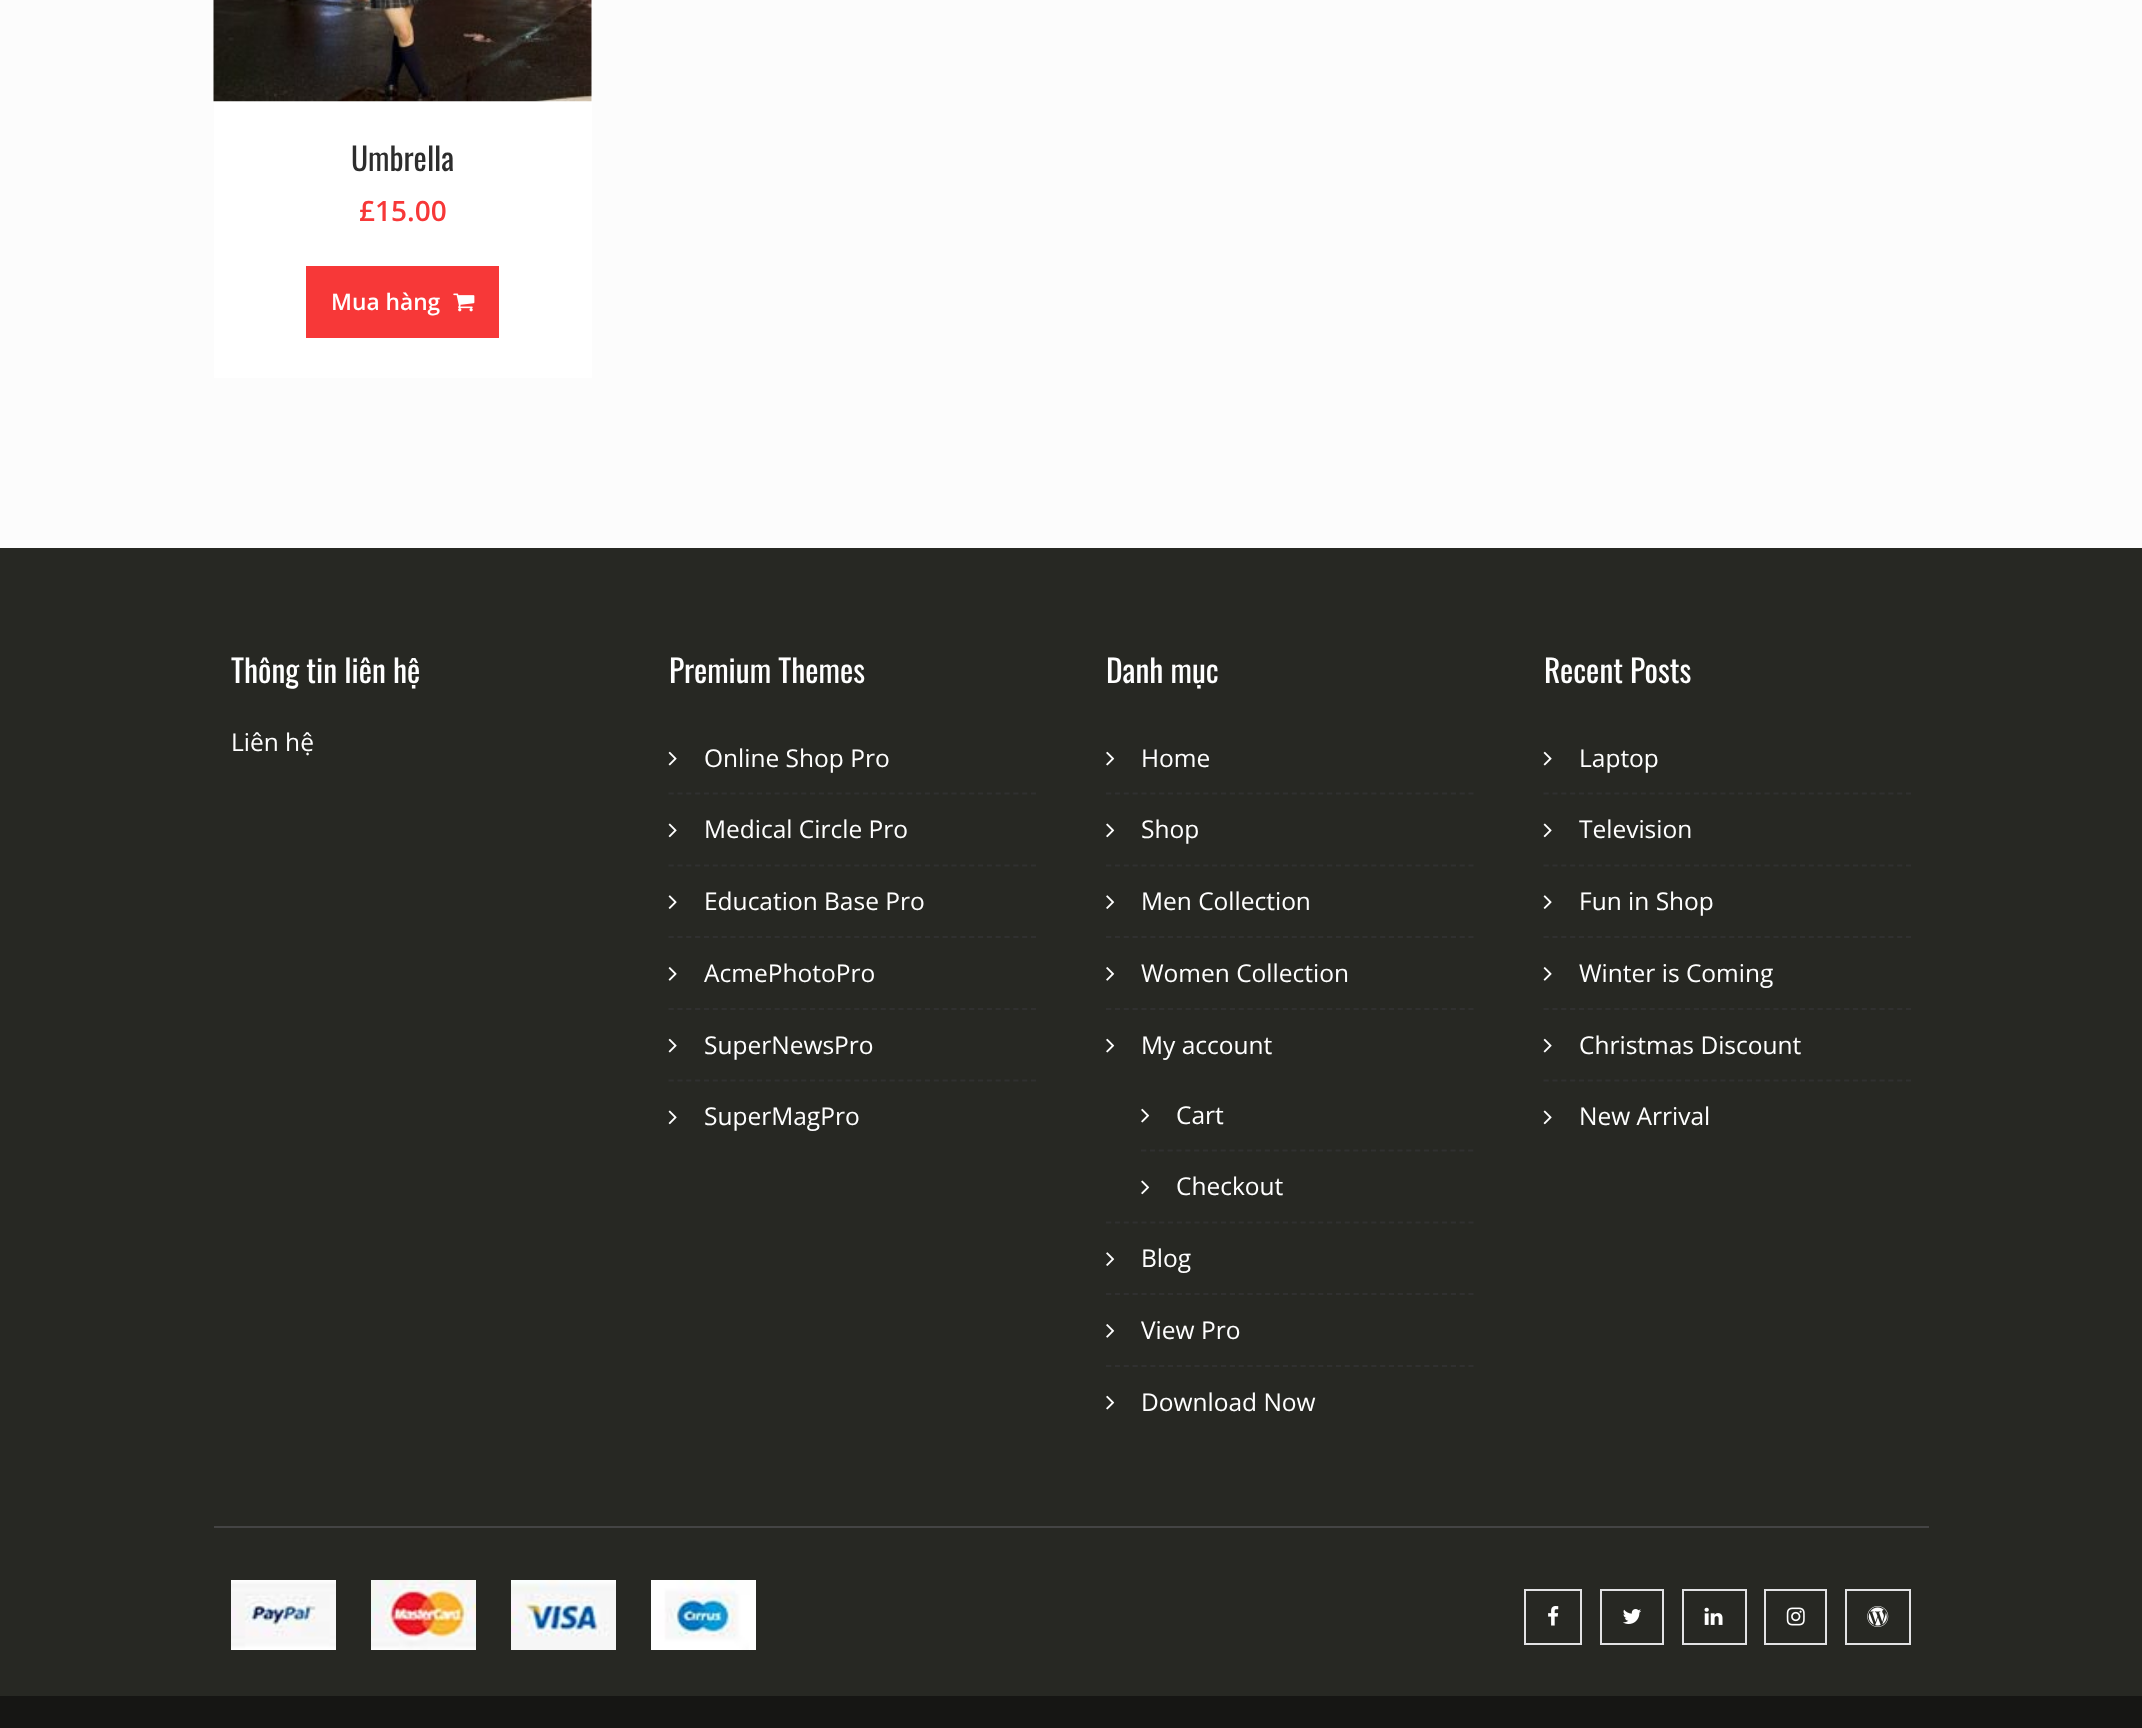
<svg xmlns="http://www.w3.org/2000/svg" width="2142" height="1728">
<rect width="100%" height="100%" fill="#fcfcfc"/>
<rect x="214" width="378" height="378" fill="#fff"/>
<image x="213" y="0" width="379" height="102" href="media/1.png"/>
<text x="351" y="171" style="font-family:Oswald;font-size:31.5px;fill:#2d2d2d">Umbrella</text>
<text x="359" y="221" style="font-family:Open Sans;font-size:28px;font-weight:600;fill:#f73838">£15.00</text>
<rect x="306" y="266" width="193" height="72" fill="#f73838"/>
<text x="331" y="310" style="font-family:Open Sans;font-size:22.75px;font-weight:600;fill:#fff">Mua hàng</text>
<image x="453" y="293" width="22" height="19" href="media/2.png"/>
<rect y="548" width="2142" height="1148" fill="#272823"/>
<rect x="214" y="1526" width="1715" height="2" fill="#444"/>
<text x="231" y="683" style="font-family:Oswald;font-size:31.5px;fill:#fff">Thông tin liên hệ</text>
<text x="231" y="751" style="font-family:Open Sans;font-size:24.5px;fill:#fff">Liên hệ</text>
<text x="669" y="683" style="font-family:Oswald;font-size:31.5px;fill:#fff">Premium Themes</text>
<image x="668" y="751" width="9" height="15" href="media/3.png"/>
<text x="704" y="767" style="font-family:Open Sans;font-size:24.5px;fill:#fff">Online Shop Pro</text>
<path d="M668.5 793.5h367.5" fill="none" stroke="#303030" stroke-width="1.8" stroke-dasharray="5.25 3.59"/>
<image x="668" y="823" width="9" height="15" href="media/4.png"/>
<text x="704" y="838" style="font-family:Open Sans;font-size:24.5px;fill:#fff">Medical Circle Pro</text>
<path d="M668.5 865.5h367.5" fill="none" stroke="#303030" stroke-width="1.8" stroke-dasharray="5.25 3.59"/>
<image x="668" y="895" width="9" height="14" href="media/5.png"/>
<text x="704" y="910" style="font-family:Open Sans;font-size:24.5px;fill:#fff">Education Base Pro</text>
<path d="M668.5 937h367.5" fill="none" stroke="#303030" stroke-width="1.8" stroke-dasharray="5.25 3.59"/>
<image x="668" y="967" width="9" height="14" href="media/6.png"/>
<text x="704" y="982" style="font-family:Open Sans;font-size:24.5px;fill:#fff">AcmePhotoPro</text>
<path d="M668.5 1009h367.5" fill="none" stroke="#303030" stroke-width="1.8" stroke-dasharray="5.25 3.59"/>
<image x="668" y="1038" width="9" height="15" href="media/3.png"/>
<text x="704" y="1054" style="font-family:Open Sans;font-size:24.5px;fill:#fff">SuperNewsPro</text>
<path d="M668.5 1080.5h367.5" fill="none" stroke="#303030" stroke-width="1.8" stroke-dasharray="5.25 3.59"/>
<image x="668" y="1110" width="9" height="15" href="media/4.png"/>
<text x="704" y="1125" style="font-family:Open Sans;font-size:24.5px;fill:#fff">SuperMagPro</text>
<text x="1106" y="683" style="font-family:Oswald;font-size:31.5px;fill:#fff">Danh mục</text>
<image x="1106" y="751" width="9" height="15" href="media/7.png"/>
<text x="1141" y="767" style="font-family:Open Sans;font-size:24.5px;fill:#fff">Home</text>
<path d="M1106 793.5h367.5" fill="none" stroke="#303030" stroke-width="1.8" stroke-dasharray="5.25 3.59"/>
<image x="1106" y="823" width="9" height="15" href="media/8.png"/>
<text x="1141" y="838" style="font-family:Open Sans;font-size:24.5px;fill:#fff">Shop</text>
<path d="M1106 865.5h367.5" fill="none" stroke="#303030" stroke-width="1.8" stroke-dasharray="5.25 3.59"/>
<image x="1106" y="895" width="9" height="14" href="media/9.png"/>
<text x="1141" y="910" style="font-family:Open Sans;font-size:24.5px;fill:#fff">Men Collection</text>
<path d="M1106 937h367.5" fill="none" stroke="#303030" stroke-width="1.8" stroke-dasharray="5.25 3.59"/>
<image x="1106" y="967" width="9" height="14" href="media/10.png"/>
<text x="1141" y="982" style="font-family:Open Sans;font-size:24.5px;fill:#fff">Women Collection</text>
<path d="M1106 1009h367.5" fill="none" stroke="#303030" stroke-width="1.8" stroke-dasharray="5.25 3.59"/>
<image x="1106" y="1038" width="9" height="15" href="media/7.png"/>
<text x="1141" y="1054" style="font-family:Open Sans;font-size:24.5px;fill:#fff">My account</text>
<image x="1141" y="1108" width="9" height="15" href="media/7.png"/>
<text x="1176" y="1124" style="font-family:Open Sans;font-size:24.5px;fill:#fff">Cart</text>
<path d="M1141 1150.5h332.5" fill="none" stroke="#303030" stroke-width="1.8" stroke-dasharray="5.25 3.59"/>
<image x="1141" y="1180" width="9" height="15" href="media/8.png"/>
<text x="1176" y="1195" style="font-family:Open Sans;font-size:24.5px;fill:#fff">Checkout</text>
<path d="M1106 1222.5h367.5" fill="none" stroke="#303030" stroke-width="1.8" stroke-dasharray="5.25 3.59"/>
<image x="1106" y="1252" width="9" height="14" href="media/9.png"/>
<text x="1141" y="1267" style="font-family:Open Sans;font-size:24.5px;fill:#fff">Blog</text>
<path d="M1106 1294h367.5" fill="none" stroke="#303030" stroke-width="1.8" stroke-dasharray="5.25 3.59"/>
<image x="1106" y="1324" width="9" height="14" href="media/10.png"/>
<text x="1141" y="1339" style="font-family:Open Sans;font-size:24.5px;fill:#fff">View Pro</text>
<path d="M1106 1366h367.5" fill="none" stroke="#303030" stroke-width="1.8" stroke-dasharray="5.25 3.59"/>
<image x="1106" y="1395" width="9" height="15" href="media/7.png"/>
<text x="1141" y="1411" style="font-family:Open Sans;font-size:24.5px;fill:#fff">Download Now</text>
<text x="1544" y="683" style="font-family:Oswald;font-size:31.5px;fill:#fff">Recent Posts</text>
<image x="1543" y="751" width="9" height="15" href="media/3.png"/>
<text x="1579" y="767" style="font-family:Open Sans;font-size:24.5px;fill:#fff">Laptop</text>
<path d="M1543.5 793.5h367.5" fill="none" stroke="#303030" stroke-width="1.8" stroke-dasharray="5.25 3.59"/>
<image x="1543" y="823" width="9" height="15" href="media/4.png"/>
<text x="1579" y="838" style="font-family:Open Sans;font-size:24.5px;fill:#fff">Television</text>
<path d="M1543.5 865.5h367.5" fill="none" stroke="#303030" stroke-width="1.8" stroke-dasharray="5.25 3.59"/>
<image x="1543" y="895" width="9" height="14" href="media/5.png"/>
<text x="1579" y="910" style="font-family:Open Sans;font-size:24.5px;fill:#fff">Fun in Shop</text>
<path d="M1543.5 937h367.5" fill="none" stroke="#303030" stroke-width="1.8" stroke-dasharray="5.25 3.59"/>
<image x="1543" y="967" width="9" height="14" href="media/6.png"/>
<text x="1579" y="982" style="font-family:Open Sans;font-size:24.5px;fill:#fff">Winter is Coming</text>
<path d="M1543.5 1009h367.5" fill="none" stroke="#303030" stroke-width="1.8" stroke-dasharray="5.25 3.59"/>
<image x="1543" y="1038" width="9" height="15" href="media/3.png"/>
<text x="1579" y="1054" style="font-family:Open Sans;font-size:24.5px;fill:#fff">Christmas Discount</text>
<path d="M1543.5 1080.5h367.5" fill="none" stroke="#303030" stroke-width="1.8" stroke-dasharray="5.25 3.59"/>
<image x="1543" y="1110" width="9" height="15" href="media/4.png"/>
<text x="1579" y="1125" style="font-family:Open Sans;font-size:24.5px;fill:#fff">New Arrival</text>
<image x="231" y="1580" width="105" height="70" href="media/11.png"/>
<image x="371" y="1580" width="105" height="70" href="media/12.png"/>
<image x="511" y="1580" width="105" height="70" href="media/13.png"/>
<image x="651" y="1580" width="105" height="70" href="media/14.png"/>
<rect x="1525" y="1590" width="56" height="54" fill="none" stroke="#e2e2e4" stroke-width="2"/>
<image x="1548" y="1606" width="11" height="20" href="media/15.png"/>
<rect x="1601" y="1590" width="62" height="54" fill="none" stroke="#e2e2e4" stroke-width="2"/>
<image x="1623" y="1609" width="19" height="15" href="media/16.png"/>
<rect x="1683" y="1590" width="63" height="54" fill="none" stroke="#e2e2e4" stroke-width="2"/>
<image x="1704" y="1607" width="19" height="18" href="media/17.png"/>
<rect x="1765" y="1590" width="61" height="54" fill="none" stroke="#e2e2e4" stroke-width="2"/>
<image x="1786" y="1607" width="19" height="19" href="media/18.png"/>
<rect x="1846" y="1590" width="64" height="54" fill="none" stroke="#e2e2e4" stroke-width="2"/>
<image x="1867" y="1606" width="22" height="21" href="media/19.png"/>
<rect y="1696" width="2142" height="32" fill="#161614"/>
</svg>
